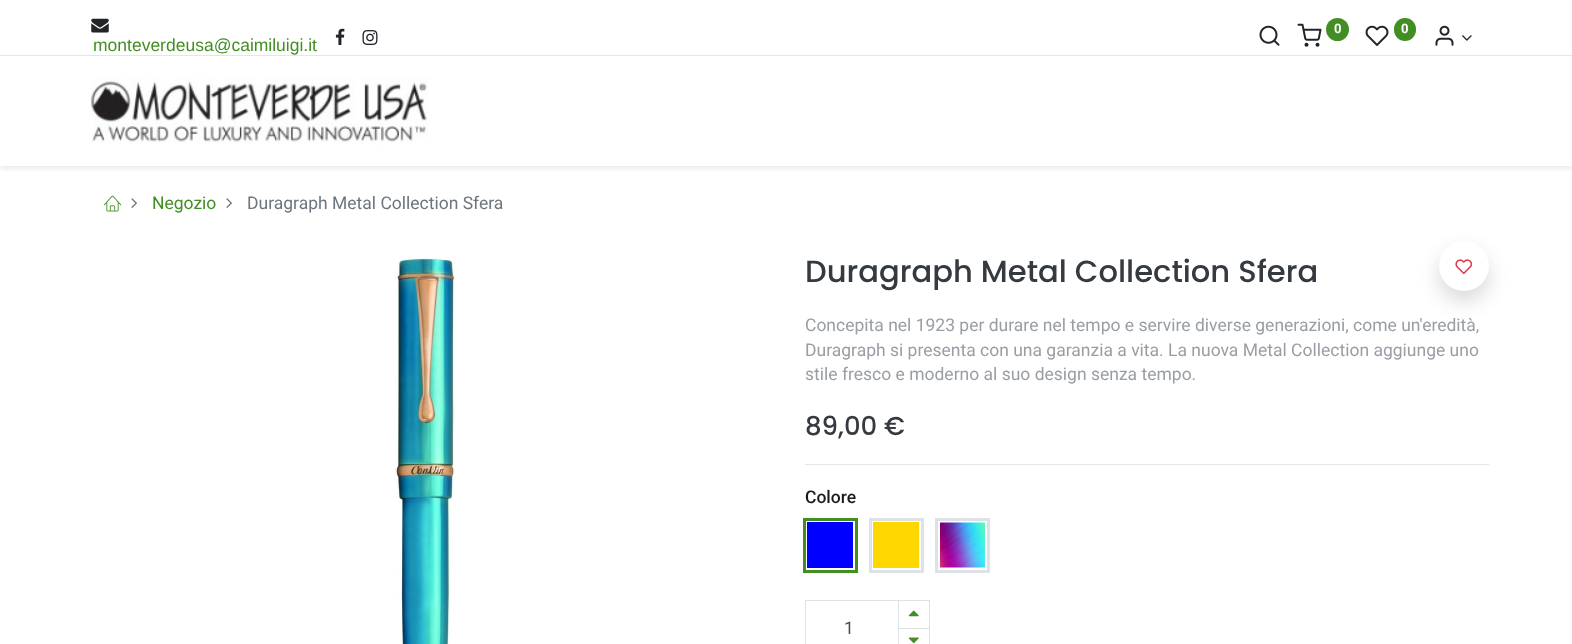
<svg xmlns="http://www.w3.org/2000/svg" width="1572" height="644">
<defs>
<clipPath id="clip1"><rect x="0" y="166" width="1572" height="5"/></clipPath>
</defs>
<rect width="100%" height="100%" fill="#fff"/>
<rect y="55" width="1572" height="1" fill="#e4e5e5"/>
<image x="1259" y="25" width="21" height="21" href="media/1.png"/>
<image x="1297" y="23" width="25" height="24" href="media/2.png"/>
<circle cx="1337.5" cy="29.5" r="11.5" fill="#438e23"/>
<text x="1334" y="33" style="font-family:Roboto;font-size:13px;font-weight:bold;fill:#fff">0</text>
<image x="1365" y="25" width="24" height="21" href="media/3.png"/>
<rect x="1394" y="18" width="22" height="23" rx="11" fill="#438e23"/>
<text x="1401" y="33" style="font-family:Roboto;font-size:13px;font-weight:bold;fill:#fff">0</text>
<image x="1435" y="25" width="19" height="21" href="media/4.png"/>
<image x="1462" y="35" width="10" height="6" href="media/5.png"/>
<image x="91" y="18" width="18" height="15" href="media/6.png"/>
<text x="93" y="51" style="font-family:Liberation Sans;font-size:17.5px;fill:#438e23">monteverdeusa@caimiluigi.it</text>
<image x="335" y="28" width="10" height="17" href="media/7.png"/>
<image x="362" y="30" width="16" height="15" href="media/8.png"/>
<g clip-path="url(#clip1)">
<rect y="59" width="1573" height="110" fill="#00000014" filter="blur(2.5px)"/>
</g>
<image x="89" y="76" width="339" height="69" href="media/9.png"/>
<image x="103" y="195" width="19" height="17" href="media/10.png"/>
<image x="131" y="198" width="6" height="10" href="media/11.png"/>
<text x="152" y="209" style="font-family:Roboto;font-size:17.5px;fill:#438e23">Negozio</text>
<image x="226" y="198" width="6" height="10" href="media/11.png"/>
<text x="247" y="209" style="font-family:Roboto;font-size:17.5px;fill:#6c757d">Duragraph Metal Collection Sfera</text>
<image x="395" y="257" width="61" height="387" href="media/12.png"/>
<text x="805" y="282" style="font-family:Poppins;font-size:30.6px;font-weight:500;fill:#343a40">Duragraph Metal Collection Sfera</text>
<text x="805" y="331" style="font-family:Roboto;font-size:17.5px;fill:#989ea4">Concepita nel 1923 per durare nel tempo e servire diverse generazioni, come un'eredità,</text>
<text x="805" y="356" style="font-family:Roboto;font-size:17.5px;fill:#989ea4">Duragraph si presenta con una garanzia a vita. La nuova Metal Collection aggiunge uno</text>
<text x="805" y="380" style="font-family:Roboto;font-size:17.5px;fill:#989ea4">stile fresco e moderno al suo design senza tempo.</text>
<rect x="1439" y="251" width="50" height="50" rx="25" fill="#00000026" filter="blur(10px)"/>
<circle cx="1464" cy="266" r="25" fill="#fff"/>
<image x="1455" y="259" width="18" height="16" href="media/13.png"/>
<text x="805" y="435" style="font-family:Poppins;font-size:26px;font-weight:500;fill:#343a40">89,00 €</text>
<rect x="805" y="464" width="684" height="1" fill="#e6e6e6"/>
<text x="805" y="503" style="font-family:Roboto;font-size:17.5px;font-weight:500;fill:#1a1a1a">Colore</text>
<rect x="804.5" y="519.5" width="52" height="52" fill="none" stroke="#438e23" stroke-width="3"/>
<rect x="807" y="522" width="46" height="46" fill="#0000fe"/>
<rect x="870.5" y="519.5" width="52" height="52" fill="none" stroke="#dee2e6" stroke-width="3"/>
<rect x="873" y="522" width="46" height="46" fill="#ffd701"/>
<rect x="936.5" y="519.5" width="52" height="52" fill="none" stroke="#dee2e6" stroke-width="3"/>
<image x="940" y="522" width="45" height="46" href="media/14.png"/>
<rect x="805.5" y="600.5" width="124" height="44" fill="none" stroke="#dee2e6"/>
<text x="844" y="634" style="font-family:Roboto;font-size:17.5px;fill:#495057">1</text>
<rect x="898" y="628" width="1" height="16" fill="#dee2e6"/>
<rect x="898" y="628" width="31" height="1" fill="#dee2e6"/>
<rect x="898" y="601" width="1" height="28" fill="#dee2e6"/>
<image x="908" y="610" width="11" height="7" href="media/15.png"/>
<image x="908" y="637" width="11" height="7" href="media/16.png"/>
</svg>
